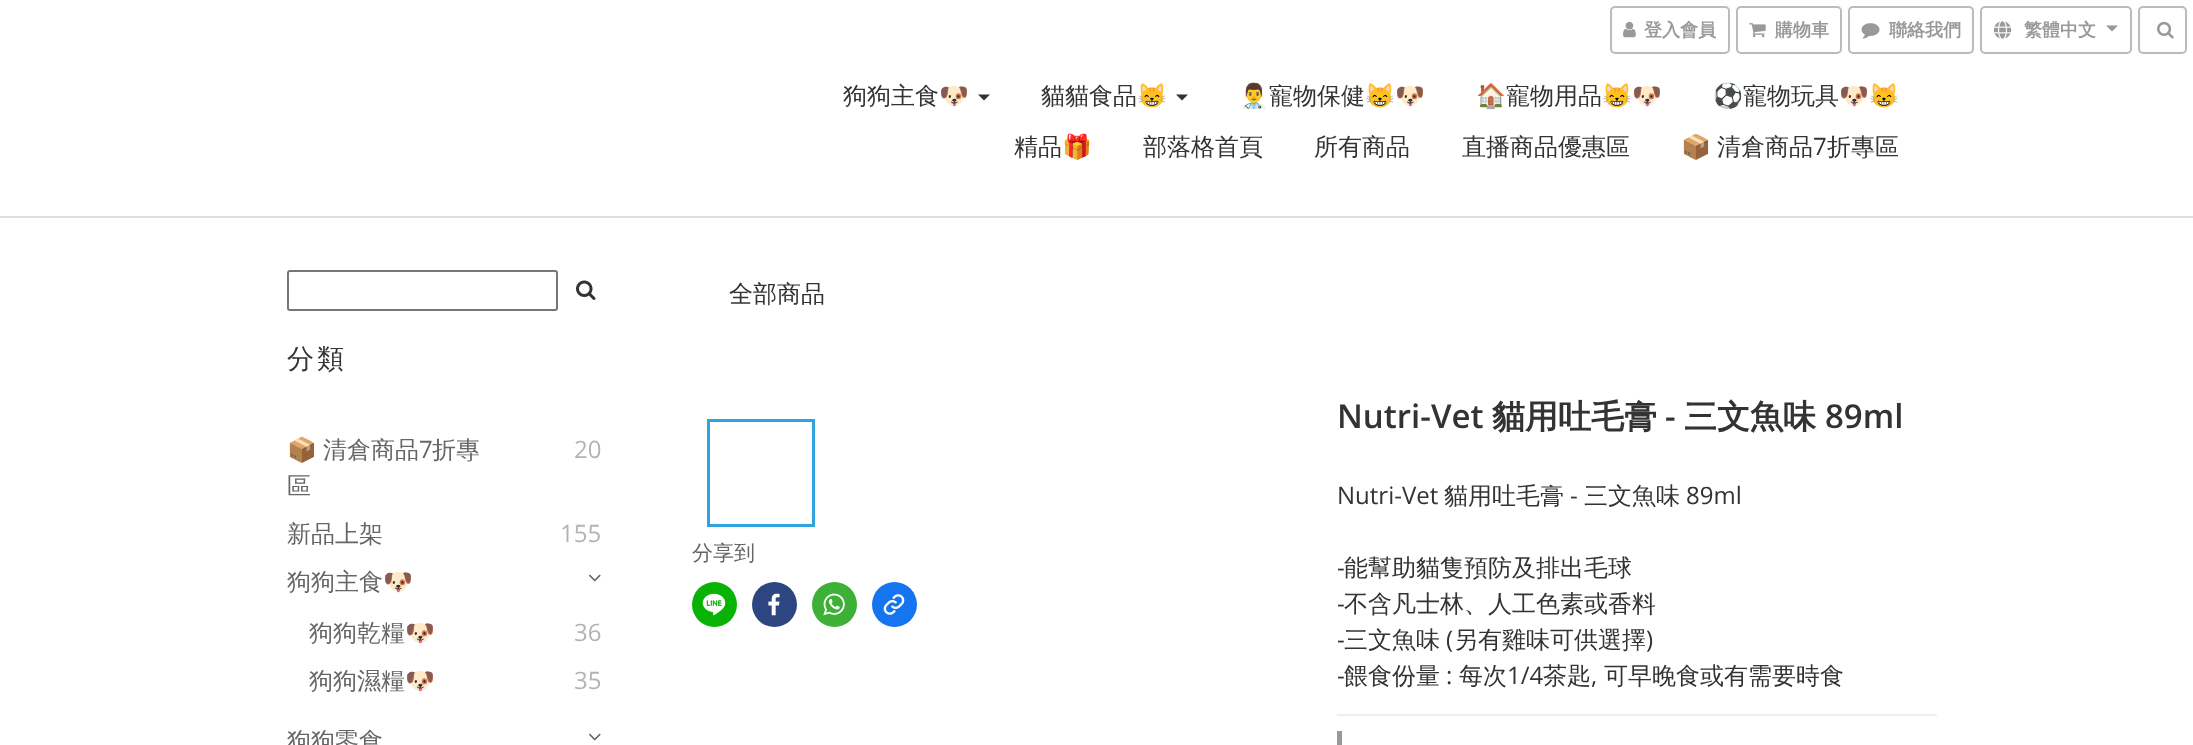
<svg xmlns="http://www.w3.org/2000/svg" width="2193" height="745">
<rect width="100%" height="100%" fill="#fff"/>
<rect x="1611" y="7" width="118" height="46" rx="4" fill="none" stroke="#bbb" stroke-width="2"/>
<image x="1623" y="21" width="13" height="17" href="media/1.png"/>
<text x="1644" y="36" style="font-family:WenQuanYi Zen Hei;font-size:18px;font-weight:bold;fill:#999">登入會員</text>
<rect x="1737" y="7" width="104" height="46" rx="4" fill="none" stroke="#bbb" stroke-width="2"/>
<image x="1749" y="23" width="17" height="15" href="media/2.png"/>
<text x="1775" y="36" style="font-family:WenQuanYi Zen Hei;font-size:18px;font-weight:bold;fill:#999">購物車</text>
<rect x="1849" y="7" width="124" height="46" rx="4" fill="none" stroke="#bbb" stroke-width="2"/>
<image x="1861" y="23" width="19" height="16" href="media/3.png"/>
<text x="1889" y="36" style="font-family:WenQuanYi Zen Hei;font-size:18px;font-weight:bold;fill:#999">聯絡我們</text>
<rect x="1981" y="7" width="150" height="46" rx="4" fill="none" stroke="#bbb" stroke-width="2"/>
<image x="1994" y="21" width="18" height="18" href="media/4.png"/>
<text x="2024" y="36" style="font-family:WenQuanYi Zen Hei;font-size:18px;font-weight:bold;fill:#999">繁體中文</text>
<path d="M2106 25.5h12l-6 6z" fill="#999"/>
<rect x="2139" y="7" width="47" height="46" rx="4" fill="none" stroke="#bbb" stroke-width="2"/>
<image x="2157" y="21" width="17" height="18" href="media/5.png"/>
<rect y="216" width="2193" height="2" fill="#e0e0e0"/>
<text x="843" y="104" style="font-family:WenQuanYi Zen Hei;font-size:24px;font-weight:500;fill:#333">狗狗主食</text>
<text x="939" y="104" style="font-family:Noto Color Emoji;font-size:24px;fill:#333">🐶</text>
<path d="M978 94.5h12l-6 6z" fill="#333"/>
<text x="1041" y="104" style="font-family:WenQuanYi Zen Hei;font-size:24px;font-weight:500;fill:#333">貓貓食品</text>
<text x="1137" y="104" style="font-family:Noto Color Emoji;font-size:24px;fill:#333">😸</text>
<path d="M1176 94.5h12l-6 6z" fill="#333"/>
<text x="1239" y="104" style="font-family:Noto Color Emoji;font-size:24px;fill:#333">👨‍⚕️</text>
<text x="1269" y="104" style="font-family:WenQuanYi Zen Hei;font-size:24px;font-weight:500;fill:#333">寵物保健</text>
<text x="1365" y="104" style="font-family:Noto Color Emoji;font-size:24px;fill:#333">😸🐶</text>
<text x="1476" y="104" style="font-family:Noto Color Emoji;font-size:24px;fill:#333">🏠</text>
<text x="1506" y="104" style="font-family:WenQuanYi Zen Hei;font-size:24px;font-weight:500;fill:#333">寵物用品</text>
<text x="1602" y="104" style="font-family:Noto Color Emoji;font-size:24px;fill:#333">😸🐶</text>
<text x="1713" y="104" style="font-family:Noto Color Emoji;font-size:24px;fill:#333">⚽</text>
<text x="1743" y="104" style="font-family:WenQuanYi Zen Hei;font-size:24px;font-weight:500;fill:#333">寵物玩具</text>
<text x="1839" y="104" style="font-family:Noto Color Emoji;font-size:24px;fill:#333">🐶😸</text>
<text x="1014" y="155" style="font-family:WenQuanYi Zen Hei;font-size:24px;font-weight:500;fill:#333">精品</text>
<text x="1062" y="155" style="font-family:Noto Color Emoji;font-size:24px;fill:#333">🎁</text>
<text x="1143" y="155" style="font-family:WenQuanYi Zen Hei;font-size:24px;font-weight:500;fill:#333">部落格首頁</text>
<text x="1314" y="155" style="font-family:WenQuanYi Zen Hei;font-size:24px;font-weight:500;fill:#333">所有商品</text>
<text x="1462" y="155" style="font-family:WenQuanYi Zen Hei;font-size:24px;font-weight:500;fill:#333">直播商品優惠區</text>
<text x="1681" y="155" style="font-family:Noto Color Emoji;font-size:24px;fill:#333">📦</text>
<text x="1717" y="155" style="font-family:WenQuanYi Zen Hei;font-size:24px;font-weight:500;fill:#333">清倉商品</text>
<text x="1813" y="155" style="font-family:Open Sans;font-size:24px;fill:#333">7</text>
<text x="1827" y="155" style="font-family:WenQuanYi Zen Hei;font-size:24px;font-weight:500;fill:#333">折專區</text>
<rect x="288" y="271" width="269" height="39" rx="2" fill="none" stroke="#767676" stroke-width="2"/>
<image x="576" y="280" width="20" height="20" href="media/6.png"/>
<text x="287" y="368" style="font-family:WenQuanYi Zen Hei;font-size:27px;font-weight:500;letter-spacing:3px;fill:#333">分類</text>
<text x="287" y="458" style="font-family:Noto Color Emoji;font-size:24px;fill:#666">📦</text>
<text x="323" y="458" style="font-family:WenQuanYi Zen Hei;font-size:24px;font-weight:500;fill:#666">清倉商品</text>
<text x="419" y="458" style="font-family:Open Sans;font-size:24px;fill:#666">7</text>
<text x="432" y="458" style="font-family:WenQuanYi Zen Hei;font-size:24px;font-weight:500;fill:#666">折專</text>
<text x="287" y="494" style="font-family:WenQuanYi Zen Hei;font-size:24px;font-weight:500;fill:#666">區</text>
<text x="574" y="458" style="font-family:Open Sans;font-size:24px;fill:#b3b3b3">20</text>
<text x="287" y="542" style="font-family:WenQuanYi Zen Hei;font-size:24px;font-weight:500;fill:#666">新品上架</text>
<text x="560" y="542" style="font-family:Open Sans;font-size:24px;fill:#b3b3b3">155</text>
<text x="287" y="590" style="font-family:WenQuanYi Zen Hei;font-size:24px;font-weight:500;fill:#666">狗狗主食</text>
<text x="383" y="590" style="font-family:Noto Color Emoji;font-size:24px;fill:#666">🐶</text>
<image x="589" y="574" width="12" height="8" href="media/7.png"/>
<text x="309" y="641" style="font-family:WenQuanYi Zen Hei;font-size:24px;font-weight:500;fill:#666">狗狗乾糧</text>
<text x="405" y="641" style="font-family:Noto Color Emoji;font-size:24px;fill:#666">🐶</text>
<text x="574" y="641" style="font-family:Open Sans;font-size:24px;fill:#b3b3b3">36</text>
<text x="309" y="689" style="font-family:WenQuanYi Zen Hei;font-size:24px;font-weight:500;fill:#666">狗狗濕糧</text>
<text x="405" y="689" style="font-family:Noto Color Emoji;font-size:24px;fill:#666">🐶</text>
<text x="574" y="689" style="font-family:Open Sans;font-size:24px;fill:#b3b3b3">35</text>
<text x="287" y="749" style="font-family:WenQuanYi Zen Hei;font-size:24px;font-weight:500;fill:#666">狗狗零食</text>
<image x="589" y="733" width="12" height="8" href="media/7.png"/>
<text x="729" y="302" style="font-family:WenQuanYi Zen Hei;font-size:24px;font-weight:500;fill:#333">全部商品</text>
<rect x="708.5" y="420.5" width="105" height="105" fill="none" stroke="#30a4e1" stroke-width="3"/>
<text x="692" y="560" style="font-family:WenQuanYi Zen Hei;font-size:21px;font-weight:500;fill:#666">分享到</text>
<circle cx="714.5" cy="604.5" r="22.5" fill="#09b305"/>
<image x="702" y="593" width="24" height="23" href="media/8.png"/>
<circle cx="774.5" cy="604.5" r="22.5" fill="#2d4682"/>
<image x="768" y="593" width="12" height="23" href="media/9.png"/>
<circle cx="834.5" cy="604.5" r="22.5" fill="#3cb136"/>
<image x="823" y="593" width="22" height="23" href="media/10.png"/>
<circle cx="894.5" cy="604.5" r="22.5" fill="#1575f0"/>
<image x="883" y="594" width="22" height="21" href="media/11.png"/>
<text x="1337" y="428" style="font-family:Open Sans;font-size:33px;font-weight:600;fill:#333">Nutri-Vet</text>
<text x="1492" y="428" style="font-family:WenQuanYi Zen Hei;font-size:33px;font-weight:bold;fill:#333">貓用吐毛膏</text>
<text x="1665" y="428" style="font-family:Open Sans;font-size:33px;font-weight:600;fill:#333">-</text>
<text x="1684" y="428" style="font-family:WenQuanYi Zen Hei;font-size:33px;font-weight:bold;fill:#333">三文魚味</text>
<text x="1825" y="428" style="font-family:Open Sans;font-size:33px;font-weight:600;fill:#333">89ml</text>
<text x="1337" y="504" style="font-family:Open Sans;font-size:24px;fill:#333">Nutri-Vet</text>
<text x="1444" y="504" style="font-family:WenQuanYi Zen Hei;font-size:24px;font-weight:500;fill:#333">貓用吐毛膏</text>
<text x="1570" y="504" style="font-family:Open Sans;font-size:24px;fill:#333">-</text>
<text x="1584" y="504" style="font-family:WenQuanYi Zen Hei;font-size:24px;font-weight:500;fill:#333">三文魚味</text>
<text x="1686" y="504" style="font-family:Open Sans;font-size:24px;fill:#333">89ml</text>
<text x="1337" y="576" style="font-family:Open Sans;font-size:24px;fill:#333">-</text>
<text x="1344" y="576" style="font-family:WenQuanYi Zen Hei;font-size:24px;font-weight:500;fill:#333">能幫助貓隻預防及排出毛球</text>
<text x="1337" y="612" style="font-family:Open Sans;font-size:24px;fill:#333">-</text>
<text x="1344" y="612" style="font-family:WenQuanYi Zen Hei;font-size:24px;font-weight:500;fill:#333">不含凡士林、人工色素或香料</text>
<text x="1337" y="648" style="font-family:Open Sans;font-size:24px;fill:#333">-</text>
<text x="1344" y="648" style="font-family:WenQuanYi Zen Hei;font-size:24px;font-weight:500;fill:#333">三文魚味</text>
<text x="1446" y="648" style="font-family:Open Sans;font-size:24px;fill:#333">(</text>
<text x="1454" y="648" style="font-family:WenQuanYi Zen Hei;font-size:24px;font-weight:500;fill:#333">另有雞味可供選擇</text>
<text x="1646" y="648" style="font-family:Open Sans;font-size:24px;fill:#333">)</text>
<text x="1337" y="684" style="font-family:Open Sans;font-size:24px;fill:#333">-</text>
<text x="1344" y="684" style="font-family:WenQuanYi Zen Hei;font-size:24px;font-weight:500;fill:#333">餵食份量</text>
<text x="1446" y="684" style="font-family:Open Sans;font-size:24px;fill:#333">:</text>
<text x="1459" y="684" style="font-family:WenQuanYi Zen Hei;font-size:24px;font-weight:500;fill:#333">每次</text>
<text x="1507" y="684" style="font-family:Open Sans;font-size:24px;fill:#333">1/4</text>
<text x="1543" y="684" style="font-family:WenQuanYi Zen Hei;font-size:24px;font-weight:500;fill:#333">茶匙</text>
<text x="1604" y="684" style="font-family:WenQuanYi Zen Hei;font-size:24px;font-weight:500;fill:#333">可早晚食或有需要時食</text>
<text x="1591" y="684" style="font-family:Open Sans;font-size:24px;fill:#333">,</text>
<rect x="1337" y="714" width="600" height="2" fill="#eee"/>
<rect x="1337" y="731" width="5" height="14" fill="#999899"/>
</svg>
